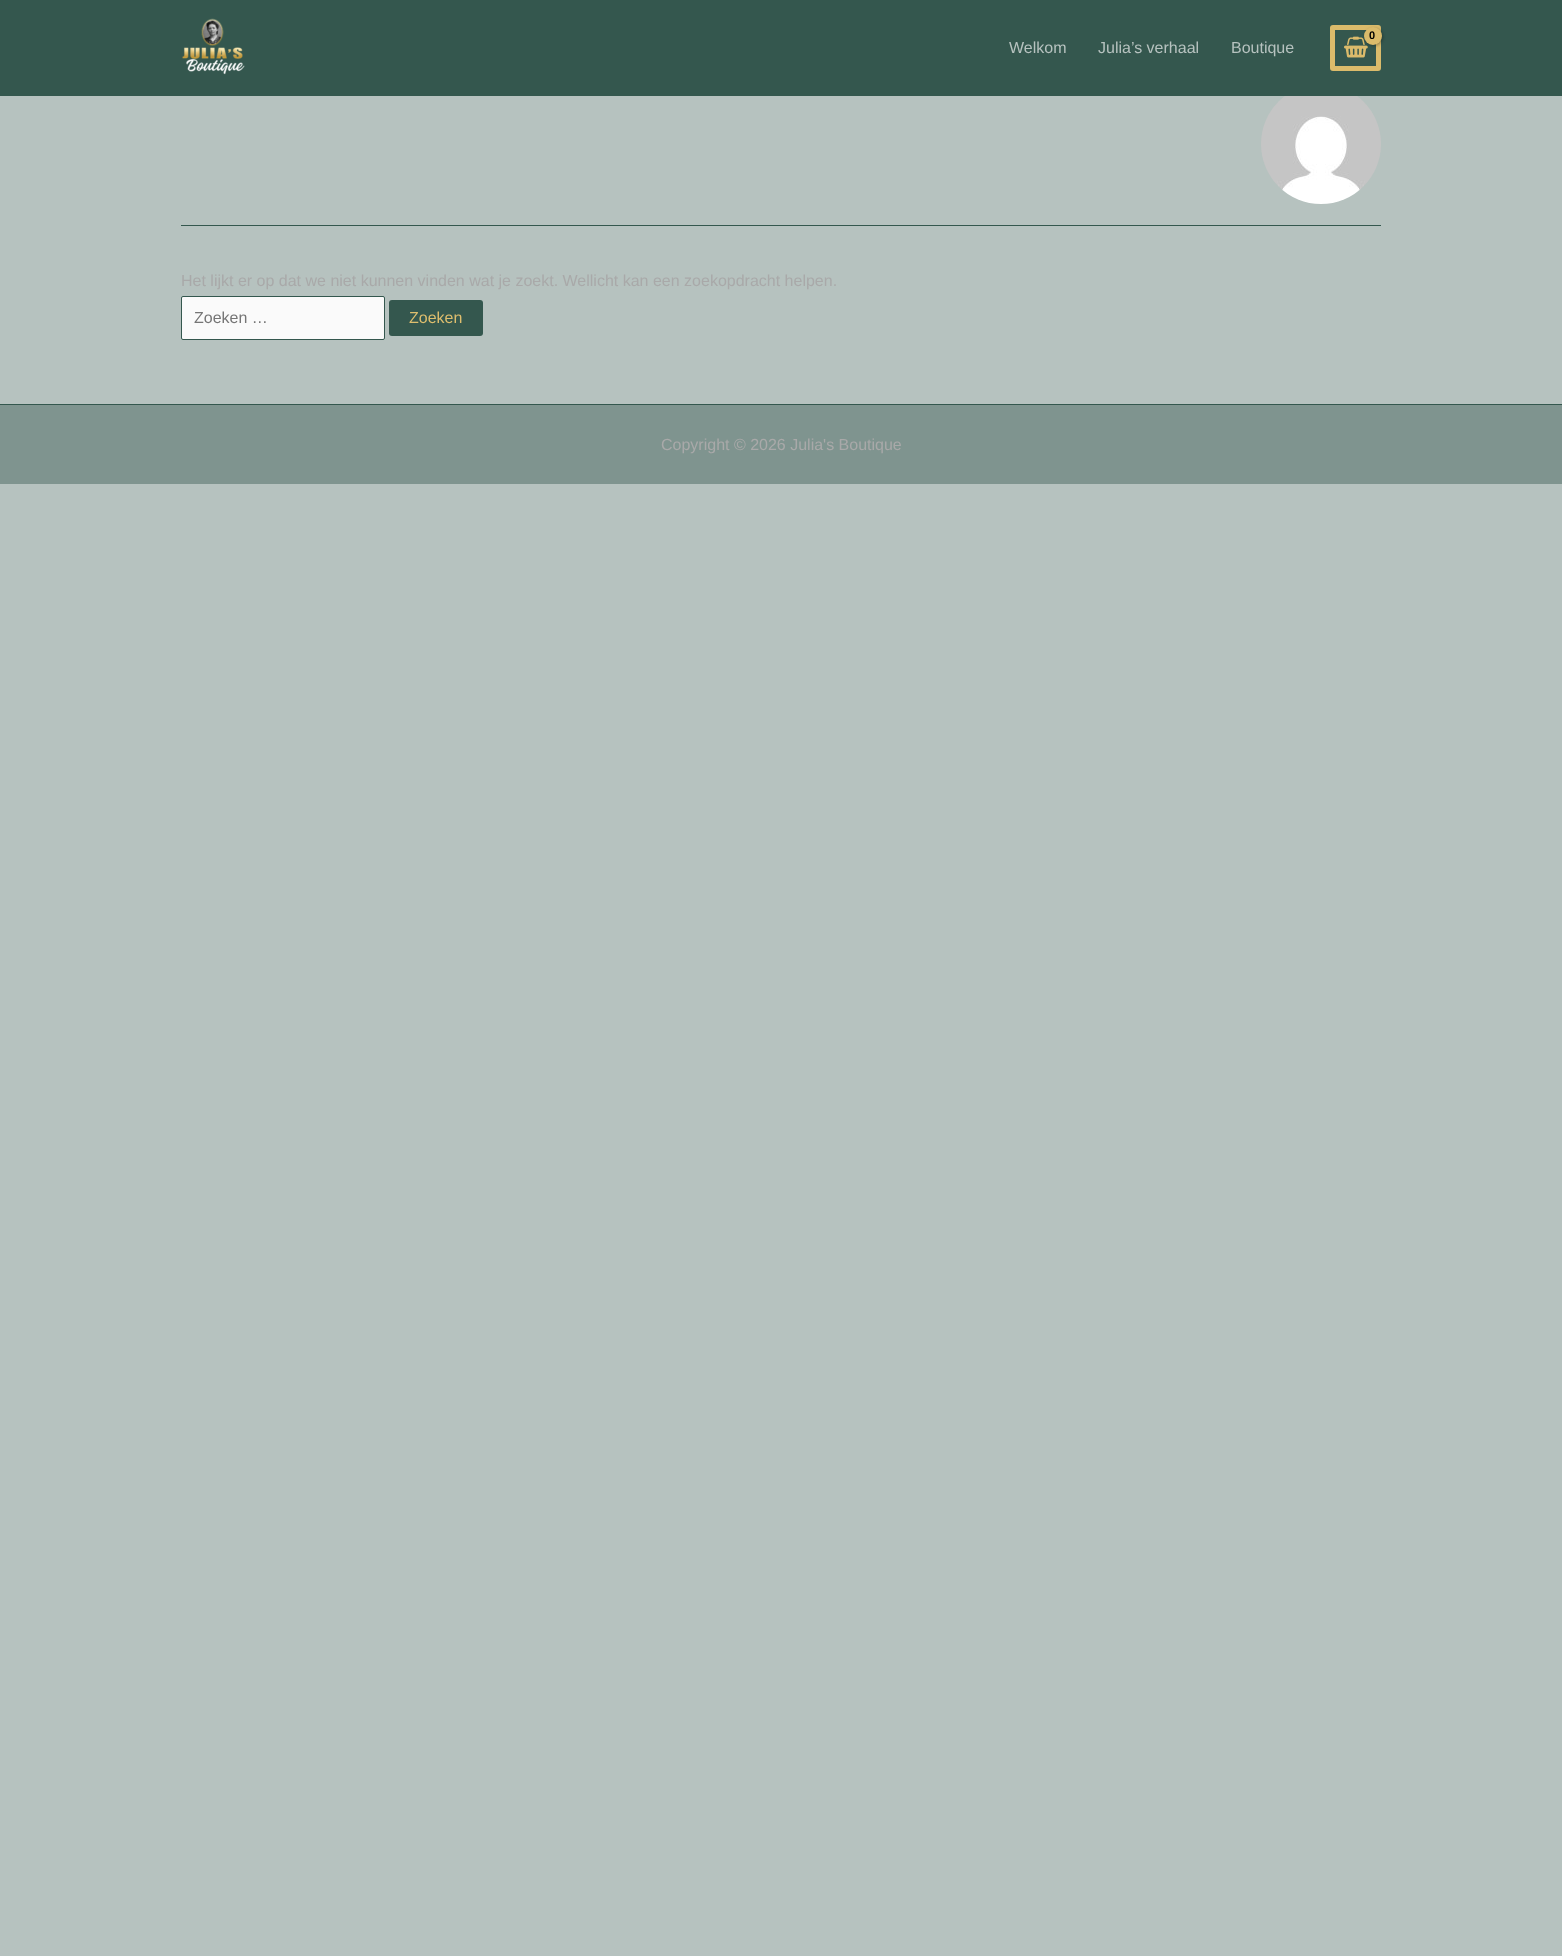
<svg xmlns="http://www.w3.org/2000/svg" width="1562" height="1956">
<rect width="100%" height="100%" fill="#b6c2bf"/>
<rect width="1562" height="96" fill="#34574e"/>
<image x="182" y="18" width="63" height="57" href="media/1.png"/>
<rect x="1332.5" y="27.5" width="46" height="41" rx="0.5" fill="none" stroke="#dbbb6b" stroke-width="5"/>
<image x="1344" y="36" width="24" height="22" href="media/2.png"/>
<rect x="1365" y="28" width="18" height="18" rx="9" fill="#0000004d" filter="blur(1.5px)"/>
<circle cx="1373" cy="36" r="9" fill="#dbbb6b"/>
<text x="1369" y="39" style="font-family:Liberation Sans;font-size:11px;font-weight:bold;fill:#000">0</text>
<text x="1009" y="53" style="font-family:Liberation Sans;font-size:16px;fill:#b6c2bf">Welkom</text>
<text x="1098" y="53" style="font-family:Liberation Sans;font-size:16px;fill:#b6c2bf">Julia’s verhaal</text>
<text x="1231" y="53" style="font-family:Liberation Sans;font-size:16px;fill:#b6c2bf">Boutique</text>
<rect x="181" y="225" width="1200" height="1" fill="#34574e"/>
<image x="1261" y="96" width="120" height="108" href="media/3.png"/>
<text x="181" y="286" style="font-family:Liberation Sans;font-size:16px;fill:#a9a9a9">Het lijkt er op dat we niet kunnen vinden wat je zoekt. Wellicht kan een zoekopdracht helpen.</text>
<rect x="181.5" y="296.5" width="203" height="43" rx="1.5" fill="#fafafa" stroke="#34574e"/>
<text x="194" y="323" style="font-family:Liberation Sans;font-size:16px;fill:#757575">Zoeken …</text>
<rect x="389" y="300" width="94" height="36" rx="3" fill="#34574e"/>
<text x="409" y="323" style="font-family:Liberation Sans;font-size:16px;fill:#debe6e">Zoeken</text>
<rect y="405" width="1562" height="79" fill="#7f948f"/>
<rect y="404" width="1562" height="1" fill="#34574e"/>
<text x="661" y="450" style="font-family:Liberation Sans;font-size:16px;fill:#a9a9a9">Copyright © 2026 Julia's Boutique</text>
</svg>
